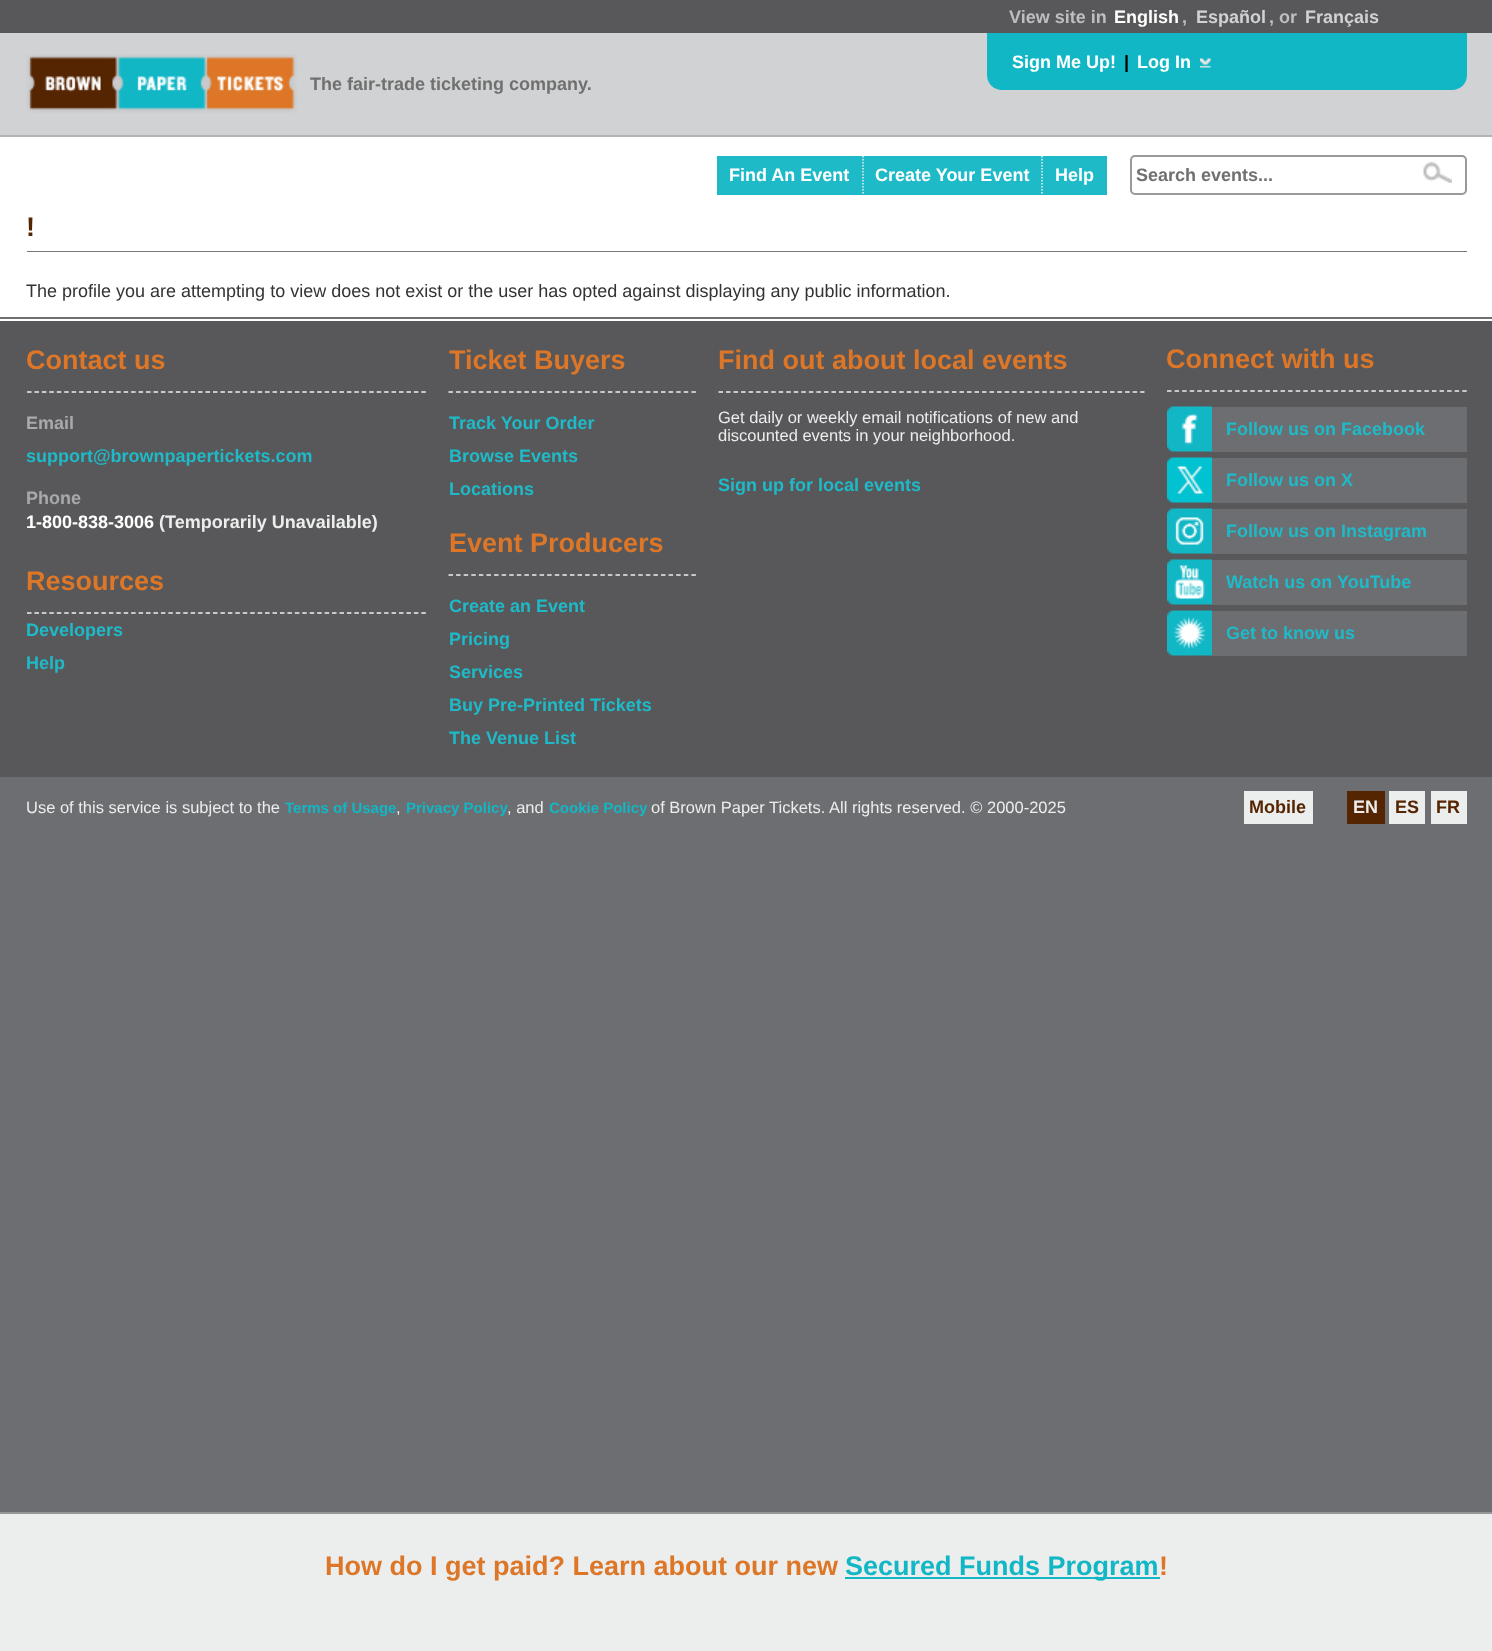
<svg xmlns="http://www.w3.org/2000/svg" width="1492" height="1651">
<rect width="100%" height="100%" fill="#6d6e71"/>
<rect width="1492" height="33" fill="#58585a"/>
<text x="1009" y="23" style="font-family:Liberation Sans;font-size:18px;font-weight:bold;fill:#bdbec0">View site in</text>
<text x="1114" y="23" style="font-family:Liberation Sans;font-size:18px;font-weight:bold;fill:#fff">English</text>
<text x="1182" y="23" style="font-family:Liberation Sans;font-size:18px;font-weight:bold;fill:#bdbec0">,</text>
<text x="1196" y="23" style="font-family:Liberation Sans;font-size:18px;font-weight:bold;fill:#d1d2d4">Español</text>
<text x="1269" y="23" style="font-family:Liberation Sans;font-size:18px;font-weight:bold;fill:#bdbec0">, or</text>
<text x="1305" y="23" style="font-family:Liberation Sans;font-size:18px;font-weight:bold;fill:#d1d2d4">Français</text>
<rect y="33" width="1492" height="102" fill="#d1d2d4"/>
<rect y="135" width="1492" height="2" fill="#b2b4b6"/>
<image x="26" y="54" width="271" height="59" href="media/1.png"/>
<path d="M987 33h480v42c0 8.5-6.5 15-15 15h-450c-8.5 0-15-6.5-15-15z" fill="#12b7c6"/>
<text x="1012" y="68" style="font-family:Liberation Sans;font-size:18px;font-weight:bold;fill:#fff">Sign Me Up!</text>
<text x="1124" y="68" style="font-family:Liberation Sans;font-size:18px;font-weight:bold;fill:#000">|</text>
<text x="1137" y="68" style="font-family:Liberation Sans;font-size:18px;font-weight:bold;fill:#fff">Log In</text>
<image x="1200" y="58" width="11" height="10" href="media/2.png"/>
<text x="310" y="90" style="font-family:Liberation Sans;font-size:18px;font-weight:bold;fill:#707070">The fair-trade ticketing company.</text>
<rect y="137" width="1492" height="184" fill="#fff"/>
<rect x="717" y="156" width="390" height="39" fill="#1fbac8"/>
<path d="M863 156v39" fill="none" stroke="#efefef" stroke-width="1.5" stroke-dasharray="1.5 1.5"/>
<text x="729" y="181" style="font-family:Liberation Sans;font-size:18px;font-weight:bold;fill:#fff">Find An Event</text>
<path d="M1042 156v39" fill="none" stroke="#efefef" stroke-width="1.5" stroke-dasharray="1.5 1.5"/>
<text x="875" y="181" style="font-family:Liberation Sans;font-size:18px;font-weight:bold;fill:#fff">Create Your Event</text>
<text x="1055" y="181" style="font-family:Liberation Sans;font-size:18px;font-weight:bold;fill:#fff">Help</text>
<rect x="1131" y="156" width="335" height="38" rx="4" fill="none" stroke="#999" stroke-width="2"/>
<text x="1136" y="181" style="font-family:Liberation Sans;font-size:18px;font-weight:bold;fill:#707070">Search events...</text>
<image x="1423" y="162" width="29" height="21" href="media/3.png"/>
<rect x="27" y="251" width="1440" height="1" fill="#777"/>
<text x="26" y="236" style="font-family:Liberation Sans;font-size:27px;font-weight:bold;fill:#552502">!</text>
<text x="26" y="297" style="font-family:Liberation Sans;font-size:18px;fill:#333">The profile you are attempting to view does not exist or the user has opted against displaying any public information.</text>
<rect y="317" width="1492" height="2" fill="#707070"/>
<rect y="321" width="1492" height="456" fill="#58585a"/>
<path d="M27 392h399" fill="none" stroke="#eceded" stroke-width="1.5" stroke-dasharray="4.5 2.94"/>
<text x="26" y="369" style="font-family:Liberation Sans;font-size:27px;font-weight:bold;fill:#dd7727">Contact us</text>
<text x="26" y="429" style="font-family:Liberation Sans;font-size:18px;font-weight:bold;fill:#a7a9ac">Email</text>
<text x="26" y="462" style="font-family:Liberation Sans;font-size:18px;font-weight:bold;fill:#1fbac8">support@brownpapertickets.com</text>
<text x="26" y="504" style="font-family:Liberation Sans;font-size:18px;font-weight:bold;fill:#a7a9ac">Phone</text>
<text x="26" y="528" style="font-family:Liberation Sans;font-size:18px;font-weight:bold;fill:#fff">1-800-838-3006</text>
<text x="159" y="528" style="font-family:Liberation Sans;font-size:18px;font-weight:bold;fill:#eceded">(Temporarily Unavailable)</text>
<path d="M27 613h399" fill="none" stroke="#eceded" stroke-width="1.5" stroke-dasharray="4.5 2.94"/>
<text x="26" y="590" style="font-family:Liberation Sans;font-size:27px;font-weight:bold;fill:#dd7727">Resources</text>
<text x="26" y="636" style="font-family:Liberation Sans;font-size:18px;font-weight:bold;fill:#1fbac8">Developers</text>
<text x="26" y="669" style="font-family:Liberation Sans;font-size:18px;font-weight:bold;fill:#1fbac8">Help</text>
<path d="M448.5 392h247.5" fill="none" stroke="#eceded" stroke-width="1.5" stroke-dasharray="4.5 3.09"/>
<text x="449" y="369" style="font-family:Liberation Sans;font-size:27px;font-weight:bold;fill:#dd7727">Ticket Buyers</text>
<text x="449" y="429" style="font-family:Liberation Sans;font-size:18px;font-weight:bold;fill:#1fbac8">Track Your Order</text>
<text x="449" y="462" style="font-family:Liberation Sans;font-size:18px;font-weight:bold;fill:#1fbac8">Browse Events</text>
<text x="449" y="495" style="font-family:Liberation Sans;font-size:18px;font-weight:bold;fill:#1fbac8">Locations</text>
<path d="M448.5 575h247.5" fill="none" stroke="#eceded" stroke-width="1.5" stroke-dasharray="4.5 3.09"/>
<text x="449" y="552" style="font-family:Liberation Sans;font-size:27px;font-weight:bold;fill:#dd7727">Event Producers</text>
<text x="449" y="612" style="font-family:Liberation Sans;font-size:18px;font-weight:bold;fill:#1fbac8">Create an Event</text>
<text x="449" y="645" style="font-family:Liberation Sans;font-size:18px;font-weight:bold;fill:#1fbac8">Pricing</text>
<text x="449" y="678" style="font-family:Liberation Sans;font-size:18px;font-weight:bold;fill:#1fbac8">Services</text>
<text x="449" y="711" style="font-family:Liberation Sans;font-size:18px;font-weight:bold;fill:#1fbac8">Buy Pre-Printed Tickets</text>
<text x="449" y="744" style="font-family:Liberation Sans;font-size:18px;font-weight:bold;fill:#1fbac8">The Venue List</text>
<path d="M718.5 392h426" fill="none" stroke="#eceded" stroke-width="1.5" stroke-dasharray="4.5 3.03"/>
<text x="718" y="369" style="font-family:Liberation Sans;font-size:27px;font-weight:bold;fill:#dd7727">Find out about local events</text>
<text x="718" y="423" style="font-family:Liberation Sans;font-size:16.5px;fill:#eceded">Get daily or weekly email notifications of new and</text>
<text x="718" y="441" style="font-family:Liberation Sans;font-size:16.5px;fill:#eceded">discounted events in your neighborhood.</text>
<text x="718" y="491" style="font-family:Liberation Sans;font-size:18px;font-weight:bold;fill:#1fbac8">Sign up for local events</text>
<path d="M1167 391h300" fill="none" stroke="#eceded" stroke-width="1.5" stroke-dasharray="4.5 3.07"/>
<text x="1166" y="368" style="font-family:Liberation Sans;font-size:27px;font-weight:bold;fill:#dd7727">Connect with us</text>
<image x="1167" y="406" width="45" height="46" href="media/4.png"/>
<rect x="1212" y="407" width="255" height="45" fill="#6d6e71"/>
<text x="1226" y="435" style="font-family:Liberation Sans;font-size:18px;font-weight:bold;fill:#1fbac8">Follow us on Facebook</text>
<image x="1167" y="457" width="45" height="46" href="media/5.png"/>
<rect x="1212" y="458" width="255" height="45" fill="#6d6e71"/>
<text x="1226" y="486" style="font-family:Liberation Sans;font-size:18px;font-weight:bold;fill:#1fbac8">Follow us on X</text>
<image x="1167" y="508" width="45" height="46" href="media/6.png"/>
<rect x="1212" y="509" width="255" height="45" fill="#6d6e71"/>
<text x="1226" y="537" style="font-family:Liberation Sans;font-size:18px;font-weight:bold;fill:#1fbac8">Follow us on Instagram</text>
<image x="1167" y="559" width="45" height="46" href="media/7.png"/>
<rect x="1212" y="560" width="255" height="45" fill="#6d6e71"/>
<text x="1226" y="588" style="font-family:Liberation Sans;font-size:18px;font-weight:bold;fill:#1fbac8">Watch us on YouTube</text>
<image x="1167" y="610" width="45" height="46" href="media/8.png"/>
<rect x="1212" y="611" width="255" height="45" fill="#6d6e71"/>
<text x="1226" y="639" style="font-family:Liberation Sans;font-size:18px;font-weight:bold;fill:#1fbac8">Get to know us</text>
<text x="26" y="813" style="font-family:Liberation Sans;font-size:16.5px;fill:#eceded">Use of this service is subject to the</text>
<text x="285" y="813" style="font-family:Liberation Sans;font-size:15px;font-weight:bold;fill:#12b7c6">Terms of Usage</text>
<text x="396" y="813" style="font-family:Liberation Sans;font-size:16.5px;fill:#eceded">,</text>
<text x="406" y="813" style="font-family:Liberation Sans;font-size:15px;font-weight:bold;fill:#12b7c6">Privacy Policy</text>
<text x="507" y="813" style="font-family:Liberation Sans;font-size:16.5px;fill:#eceded">, and</text>
<text x="549" y="813" style="font-family:Liberation Sans;font-size:15px;font-weight:bold;fill:#12b7c6">Cookie Policy</text>
<text x="651" y="813" style="font-family:Liberation Sans;font-size:16.5px;fill:#eceded">of Brown Paper Tickets.</text>
<text x="829" y="813" style="font-family:Liberation Sans;font-size:16.5px;fill:#eceded">All rights reserved. © 2000-2025</text>
<rect x="1244" y="791" width="69" height="33" fill="#eceded"/>
<text x="1249" y="813" style="font-family:Liberation Sans;font-size:18px;font-weight:bold;fill:#552502">Mobile</text>
<rect x="1347" y="791" width="38" height="33" fill="#552502"/>
<text x="1353" y="813" style="font-family:Liberation Sans;font-size:18px;font-weight:bold;fill:#eceded">EN</text>
<rect x="1389" y="791" width="36" height="33" fill="#eceded"/>
<text x="1395" y="813" style="font-family:Liberation Sans;font-size:18px;font-weight:bold;fill:#552502">ES</text>
<rect x="1431" y="791" width="36" height="33" fill="#eceded"/>
<text x="1436" y="813" style="font-family:Liberation Sans;font-size:18px;font-weight:bold;fill:#552502">FR</text>
<rect y="1514" width="1492" height="137" fill="#eceded"/>
<rect y="1512" width="1492" height="2" fill="#969699"/>
<text x="325" y="1575" style="font-family:Liberation Sans;font-size:27px;font-weight:bold;fill:#dd7727">How do I get paid? Learn about our new</text>
<rect x="845" y="1577" width="315" height="2" fill="#12b7c6"/>
<text x="845" y="1575" style="font-family:Liberation Sans;font-size:27px;font-weight:bold;fill:#12b7c6">Secured Funds Program</text>
<text x="1159" y="1575" style="font-family:Liberation Sans;font-size:27px;font-weight:bold;fill:#dd7727">!</text>
</svg>
